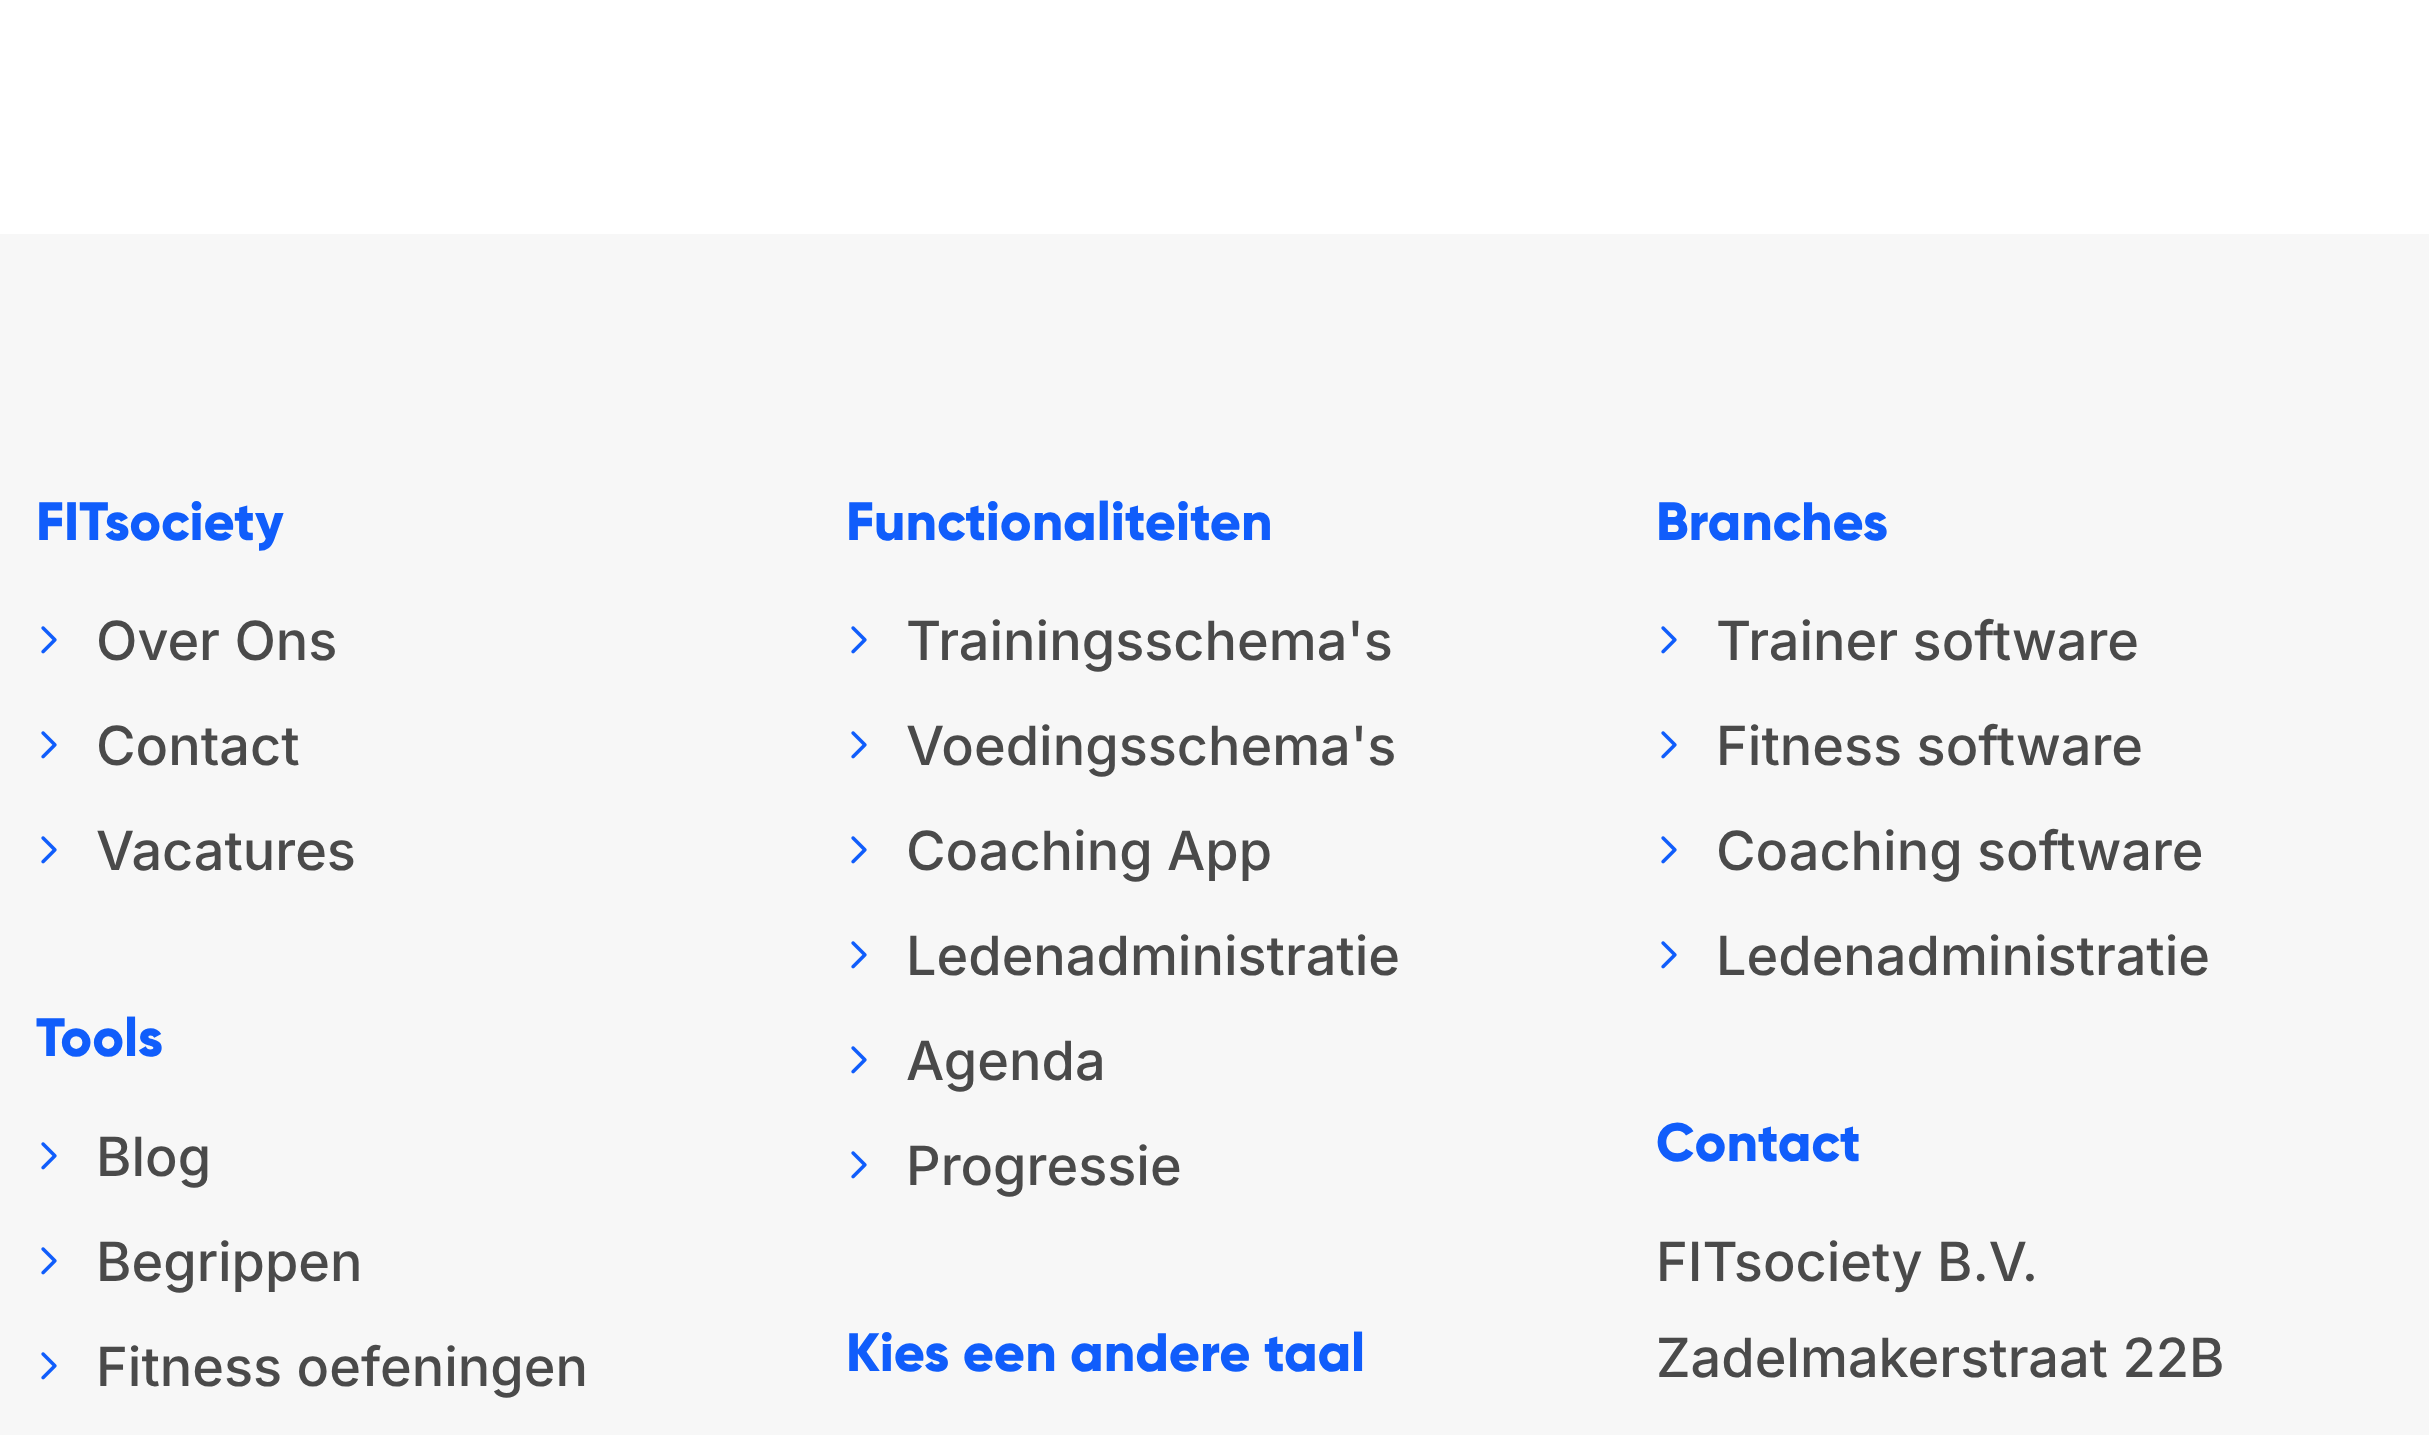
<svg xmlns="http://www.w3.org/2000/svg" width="2429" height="1435">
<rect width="100%" height="100%" fill="#fff"/>
<rect y="234" width="2429" height="1201" fill="#f7f7f7"/>
<text x="36" y="540" style="font-family:Gilroy;font-size:54px;font-weight:800;fill:#105dfb">FITsociety</text>
<image x="41" y="626" width="16" height="28" href="media/1.png"/>
<text x="96" y="660" style="font-family:Inter;font-size:54px;font-weight:500;fill:#4a4a4a">Over Ons</text>
<image x="41" y="731" width="16" height="28" href="media/1.png"/>
<text x="96" y="765" style="font-family:Inter;font-size:54px;font-weight:500;fill:#4a4a4a">Contact</text>
<image x="41" y="836" width="16" height="28" href="media/1.png"/>
<text x="96" y="870" style="font-family:Inter;font-size:54px;font-weight:500;fill:#4a4a4a">Vacatures</text>
<text x="36" y="1056" style="font-family:Gilroy;font-size:54px;font-weight:800;fill:#105dfb">Tools</text>
<image x="41" y="1142" width="16" height="28" href="media/1.png"/>
<text x="96" y="1176" style="font-family:Inter;font-size:54px;font-weight:500;fill:#4a4a4a">Blog</text>
<image x="41" y="1247" width="16" height="28" href="media/1.png"/>
<text x="96" y="1281" style="font-family:Inter;font-size:54px;font-weight:500;fill:#4a4a4a">Begrippen</text>
<image x="41" y="1352" width="16" height="28" href="media/1.png"/>
<text x="96" y="1386" style="font-family:Inter;font-size:54px;font-weight:500;fill:#4a4a4a">Fitness oefeningen</text>
<text x="846" y="540" style="font-family:Gilroy;font-size:54px;font-weight:800;fill:#105dfb">Functionaliteiten</text>
<image x="851" y="626" width="16" height="28" href="media/1.png"/>
<text x="906" y="660" style="font-family:Inter;font-size:54px;font-weight:500;fill:#4a4a4a">Trainingsschema's</text>
<image x="851" y="731" width="16" height="28" href="media/1.png"/>
<text x="906" y="765" style="font-family:Inter;font-size:54px;font-weight:500;fill:#4a4a4a">Voedingsschema's</text>
<image x="851" y="836" width="16" height="28" href="media/1.png"/>
<text x="906" y="870" style="font-family:Inter;font-size:54px;font-weight:500;fill:#4a4a4a">Coaching App</text>
<image x="851" y="941" width="16" height="28" href="media/1.png"/>
<text x="906" y="975" style="font-family:Inter;font-size:54px;font-weight:500;fill:#4a4a4a">Ledenadministratie</text>
<image x="851" y="1046" width="16" height="28" href="media/1.png"/>
<text x="906" y="1080" style="font-family:Inter;font-size:54px;font-weight:500;fill:#4a4a4a">Agenda</text>
<image x="851" y="1151" width="16" height="28" href="media/1.png"/>
<text x="906" y="1185" style="font-family:Inter;font-size:54px;font-weight:500;fill:#4a4a4a">Progressie</text>
<text x="846" y="1371" style="font-family:Gilroy;font-size:54px;font-weight:800;fill:#105dfb">Kies een andere taal</text>
<text x="1656" y="540" style="font-family:Gilroy;font-size:54px;font-weight:800;fill:#105dfb">Branches</text>
<image x="1661" y="626" width="16" height="28" href="media/1.png"/>
<text x="1716" y="660" style="font-family:Inter;font-size:54px;font-weight:500;fill:#4a4a4a">Trainer software</text>
<image x="1661" y="731" width="16" height="28" href="media/1.png"/>
<text x="1716" y="765" style="font-family:Inter;font-size:54px;font-weight:500;fill:#4a4a4a">Fitness software</text>
<image x="1661" y="836" width="16" height="28" href="media/1.png"/>
<text x="1716" y="870" style="font-family:Inter;font-size:54px;font-weight:500;fill:#4a4a4a">Coaching software</text>
<image x="1661" y="941" width="16" height="28" href="media/1.png"/>
<text x="1716" y="975" style="font-family:Inter;font-size:54px;font-weight:500;fill:#4a4a4a">Ledenadministratie</text>
<text x="1656" y="1161" style="font-family:Gilroy;font-size:54px;font-weight:800;fill:#105dfb">Contact</text>
<text x="1656" y="1281" style="font-family:Inter;font-size:54px;font-weight:500;fill:#4a4a4a">FITsociety B.V.</text>
<text x="1656" y="1377" style="font-family:Inter;font-size:54px;font-weight:500;fill:#4a4a4a">Zadelmakerstraat 22B</text>
</svg>
